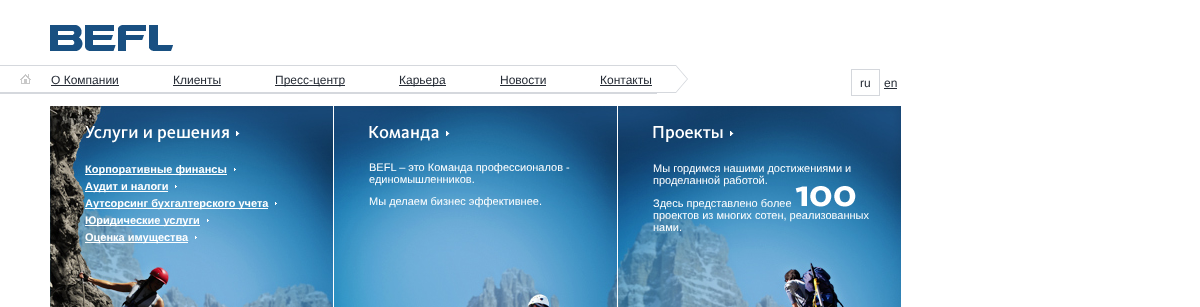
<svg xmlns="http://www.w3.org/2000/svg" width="1200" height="307">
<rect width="100%" height="100%" fill="#fff"/>
<image x="50" y="25" width="123" height="26" href="media/1.png"/>
<image x="0" y="65" width="36" height="29" href="media/2.png"/>
<image x="20" y="74" width="11" height="10" href="media/3.png"/>
<image x="36" y="65" width="88" height="29" href="media/4.png"/>
<text x="51" y="84" style="font-family:Liberation Sans;font-size:12px;fill:#252b35">О Компании</text>
<rect x="51" y="85" width="68" height="1" fill="#252b35"/>
<image x="124" y="65" width="102" height="29" href="media/5.png"/>
<text x="173" y="84" style="font-family:Liberation Sans;font-size:12px;fill:#252b35">Клиенты</text>
<rect x="173" y="85" width="48" height="1" fill="#252b35"/>
<image x="226" y="65" width="124" height="29" href="media/6.png"/>
<rect x="275" y="85" width="70" height="1" fill="#252b35"/>
<text x="275" y="84" style="font-family:Liberation Sans;font-size:12px;fill:#252b35">Пресс-центр</text>
<image x="350" y="65" width="101" height="29" href="media/7.png"/>
<rect x="399" y="85" width="47" height="1" fill="#252b35"/>
<text x="399" y="84" style="font-family:Liberation Sans;font-size:12px;fill:#252b35">Карьера</text>
<image x="451" y="65" width="100" height="29" href="media/8.png"/>
<text x="500" y="84" style="font-family:Liberation Sans;font-size:12px;fill:#252b35">Новости</text>
<rect x="500" y="85" width="46" height="1" fill="#252b35"/>
<image x="551" y="65" width="106" height="29" href="media/9.png"/>
<text x="600" y="84" style="font-family:Liberation Sans;font-size:12px;fill:#252b35">Контакты</text>
<rect x="600" y="85" width="52" height="1" fill="#252b35"/>
<image x="657" y="65" width="31" height="28" href="media/10.png"/>
<rect x="851.5" y="69.5" width="28" height="26" fill="none" stroke="#d4d7dc"/>
<text x="860" y="87" style="font-family:Liberation Sans;font-size:12px;fill:#252b35">ru</text>
<text x="884" y="87" style="font-family:Liberation Sans;font-size:12px;fill:#252b35">en</text>
<rect x="884" y="88" width="13" height="1" fill="#252b35"/>
<image x="50" y="106" width="283" height="201" href="media/11.png"/>
<image x="85" y="126" width="155" height="17" href="media/12.png"/>
<rect x="85" y="174" width="142" height="1" fill="#fff"/>
<text x="85" y="173" style="font-family:Liberation Sans;font-size:11px;font-weight:bold;fill:#fff">Корпоративные финансы</text>
<image x="234" y="168" width="2" height="3" href="media/13.png"/>
<rect x="85" y="191" width="83" height="1" fill="#fff"/>
<text x="85" y="190" style="font-family:Liberation Sans;font-size:11px;font-weight:bold;fill:#fff">Аудит и налоги</text>
<image x="175" y="185" width="2" height="3" href="media/14.png"/>
<rect x="85" y="208" width="183" height="1" fill="#fff"/>
<text x="85" y="207" style="font-family:Liberation Sans;font-size:11px;font-weight:bold;fill:#fff">Аутсорсинг бухгалтерского учета</text>
<image x="275" y="202" width="2" height="3" href="media/15.png"/>
<rect x="85" y="225" width="115" height="1" fill="#fff"/>
<text x="85" y="224" style="font-family:Liberation Sans;font-size:11px;font-weight:bold;fill:#fff">Юридические услуги</text>
<image x="207" y="219" width="2" height="3" href="media/16.png"/>
<rect x="85" y="242" width="103" height="1" fill="#fff"/>
<text x="85" y="241" style="font-family:Liberation Sans;font-size:11px;font-weight:bold;fill:#fff">Оценка имущества</text>
<image x="195" y="236" width="2" height="3" href="media/17.png"/>
<image x="334" y="106" width="283" height="201" href="media/18.png"/>
<image x="369" y="126" width="81" height="15" href="media/19.png"/>
<text x="369" y="171" style="font-family:Liberation Sans;font-size:11px;fill:#fff">BEFL – это Команда профессионалов -</text>
<text x="369" y="183" style="font-family:Liberation Sans;font-size:11px;fill:#fff">единомышленников.</text>
<text x="369" y="205" style="font-family:Liberation Sans;font-size:11px;fill:#fff">Мы делаем бизнес эффективнее.</text>
<image x="618" y="106" width="283" height="201" href="media/20.png"/>
<image x="653" y="126" width="81" height="16" href="media/21.png"/>
<text x="653" y="172" style="font-family:Liberation Sans;font-size:11px;fill:#fff">Мы гордимся нашими достижениями и</text>
<text x="653" y="184" style="font-family:Liberation Sans;font-size:11px;fill:#fff">проделанной работой.</text>
<text x="653" y="207" style="font-family:Liberation Sans;font-size:11px;fill:#fff">Здесь представлено более</text>
<image x="795" y="186" width="61" height="21" href="media/22.png"/>
<text x="653" y="219" style="font-family:Liberation Sans;font-size:11px;fill:#fff">проектов из многих сотен, реализованных</text>
<text x="653" y="231" style="font-family:Liberation Sans;font-size:11px;fill:#fff">нами.</text>
</svg>
